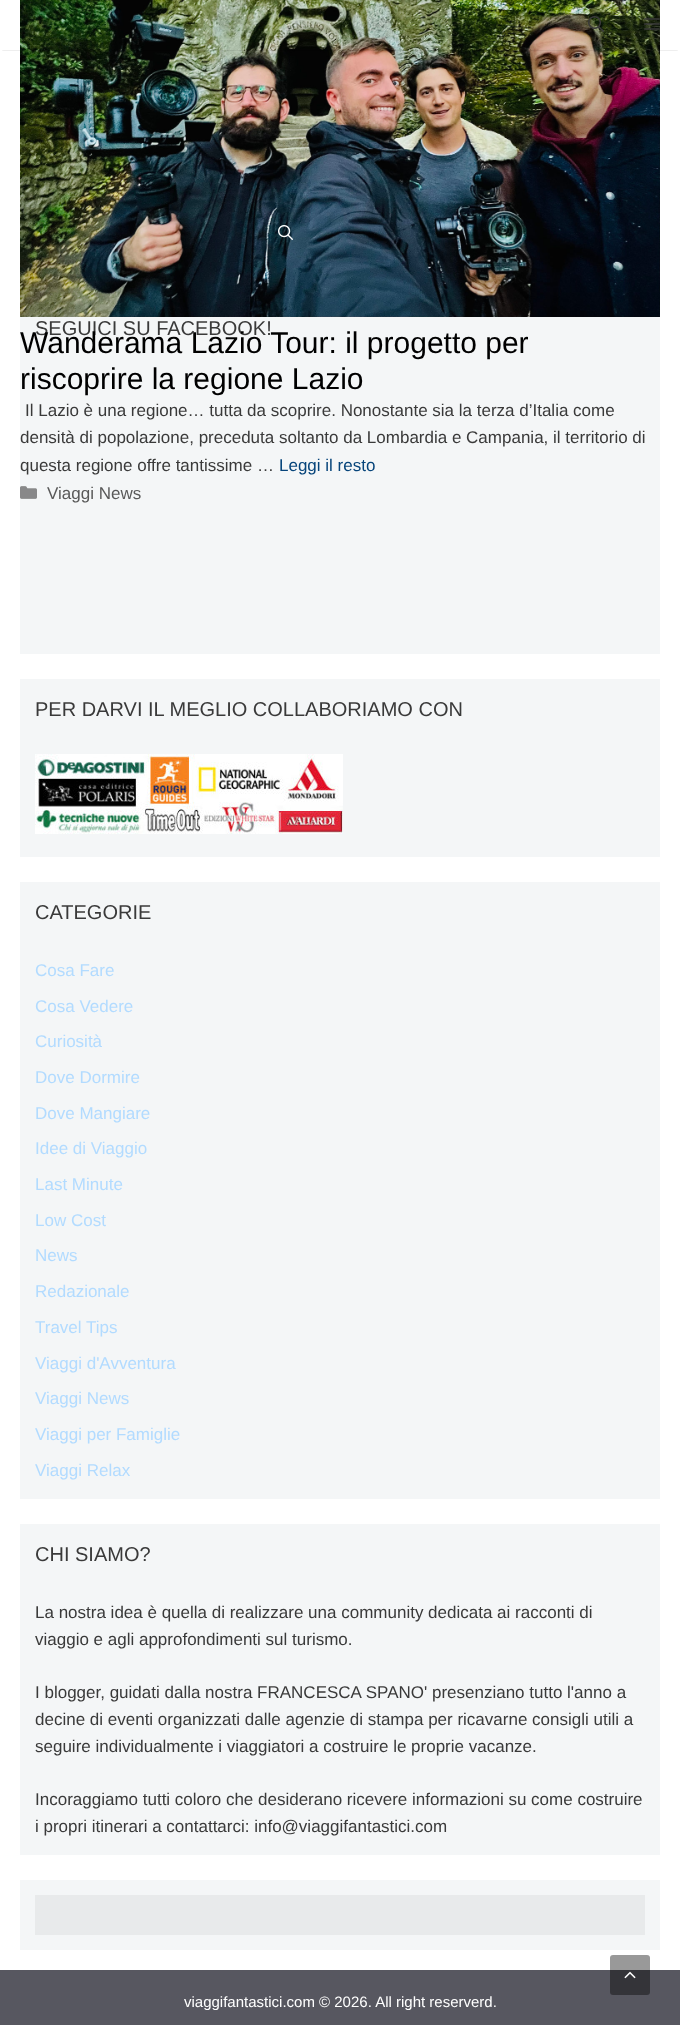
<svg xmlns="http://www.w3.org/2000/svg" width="680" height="2025">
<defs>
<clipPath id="clip1"><rect x="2" y="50" width="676" height="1"/></clipPath>
</defs>
<rect width="100%" height="100%" fill="#fff"/>
<image x="20" y="0" width="640" height="317" href="media/5.png"/>
<g clip-path="url(#clip1)">
<rect x="2" y="4" width="676" height="46" fill="#00000033" filter="blur(1px)"/>
</g>
<image x="588" y="16" width="16" height="16" href="media/1.png"/>
<image x="644" y="18" width="16" height="12" href="media/2.png"/>
<image x="278" y="225" width="15" height="15" href="media/3.png"/>
<rect x="20" y="317" width="640" height="337" fill="#f4f6f7"/>
<text x="35" y="335" style="font-family:Liberation Sans;font-size:20px;fill:#3a3a3a">SEGUICI SU FACEBOOK!</text>
<rect x="20" y="679" width="640" height="178" fill="#f4f6f7"/>
<text x="35" y="716" style="font-family:Liberation Sans;font-size:20px;fill:#3a3a3a">PER DARVI IL MEGLIO COLLABORIAMO CON</text>
<image x="35" y="754" width="308" height="80" href="media/4.png"/>
<rect x="20" y="882" width="640" height="617" fill="#f4f6f7"/>
<text x="35" y="919" style="font-family:Liberation Sans;font-size:20px;fill:#3a3a3a">CATEGORIE</text>
<text x="35" y="976" style="font-family:Liberation Sans;font-size:17px;fill:#b2dbff">Cosa Fare</text>
<text x="35" y="1012" style="font-family:Liberation Sans;font-size:17px;fill:#b2dbff">Cosa Vedere</text>
<text x="35" y="1047" style="font-family:Liberation Sans;font-size:17px;fill:#b2dbff">Curiosità</text>
<text x="35" y="1083" style="font-family:Liberation Sans;font-size:17px;fill:#b2dbff">Dove Dormire</text>
<text x="35" y="1119" style="font-family:Liberation Sans;font-size:17px;fill:#b2dbff">Dove Mangiare</text>
<text x="35" y="1154" style="font-family:Liberation Sans;font-size:17px;fill:#b2dbff">Idee di Viaggio</text>
<text x="35" y="1190" style="font-family:Liberation Sans;font-size:17px;fill:#b2dbff">Last Minute</text>
<text x="35" y="1226" style="font-family:Liberation Sans;font-size:17px;fill:#b2dbff">Low Cost</text>
<text x="35" y="1261" style="font-family:Liberation Sans;font-size:17px;fill:#b2dbff">News</text>
<text x="35" y="1297" style="font-family:Liberation Sans;font-size:17px;fill:#b2dbff">Redazionale</text>
<text x="35" y="1333" style="font-family:Liberation Sans;font-size:17px;fill:#b2dbff">Travel Tips</text>
<text x="35" y="1369" style="font-family:Liberation Sans;font-size:17px;fill:#b2dbff">Viaggi d'Avventura</text>
<text x="35" y="1404" style="font-family:Liberation Sans;font-size:17px;fill:#b2dbff">Viaggi News</text>
<text x="35" y="1440" style="font-family:Liberation Sans;font-size:17px;fill:#b2dbff">Viaggi per Famiglie</text>
<text x="35" y="1476" style="font-family:Liberation Sans;font-size:17px;fill:#b2dbff">Viaggi Relax</text>
<rect x="20" y="1524" width="640" height="331" fill="#f4f6f7"/>
<text x="35" y="1561" style="font-family:Liberation Sans;font-size:20px;fill:#3a3a3a">CHI SIAMO?</text>
<text x="35" y="1618" style="font-family:Liberation Sans;font-size:17px;fill:#3a3a3a">La nostra idea è quella di realizzare una community dedicata ai racconti di</text>
<text x="35" y="1645" style="font-family:Liberation Sans;font-size:17px;fill:#3a3a3a">viaggio e agli approfondimenti sul turismo.</text>
<text x="35" y="1698" style="font-family:Liberation Sans;font-size:17px;fill:#3a3a3a">I blogger, guidati dalla nostra FRANCESCA SPANO' presenziano tutto l'anno a</text>
<text x="35" y="1725" style="font-family:Liberation Sans;font-size:17px;fill:#3a3a3a">decine di eventi organizzati dalle agenzie di stampa per ricavarne consigli utili a</text>
<text x="35" y="1752" style="font-family:Liberation Sans;font-size:17px;fill:#3a3a3a">seguire individualmente i viaggiatori a costruire le proprie vacanze.</text>
<text x="35" y="1805" style="font-family:Liberation Sans;font-size:17px;fill:#3a3a3a">Incoraggiamo tutti coloro che desiderano ricevere informazioni su come costruire</text>
<text x="35" y="1832" style="font-family:Liberation Sans;font-size:17px;fill:#3a3a3a">i propri itinerari a contattarci: info@viaggifantastici.com</text>
<rect x="20" y="1880" width="640" height="70" fill="#f4f6f7"/>
<rect x="35" y="1895" width="610" height="40" fill="#e8eaeb"/>
<text x="20" y="353" style="font-family:Liberation Sans;font-size:30px;fill:#000">Wanderama Lazio Tour: il progetto per</text>
<text x="20" y="389" style="font-family:Liberation Sans;font-size:30px;fill:#000">riscoprire la regione Lazio</text>
<text x="25" y="416" style="font-family:Liberation Sans;font-size:17px;fill:#3a3a3a">Il Lazio è una regione… tutta da scoprire. Nonostante sia la terza d’Italia come</text>
<text x="20" y="443" style="font-family:Liberation Sans;font-size:17px;fill:#3a3a3a">densità di popolazione, preceduta soltanto da Lombardia e Campania, il territorio di</text>
<text x="20" y="471" style="font-family:Liberation Sans;font-size:17px;fill:#3a3a3a">questa regione offre tantissime …</text>
<text x="279" y="471" style="font-family:Liberation Sans;font-size:17px;fill:#06447a">Leggi il resto</text>
<image x="20" y="486" width="17" height="13" href="media/6.png"/>
<text x="47" y="499" style="font-family:Liberation Sans;font-size:17px;fill:#595959">Viaggi News</text>
<rect y="1970" width="680" height="55" fill="#575760"/>
<rect x="610" y="1955" width="40" height="40" rx="3" fill="#00000066"/>
<image x="624" y="1971" width="12" height="8" href="media/7.png"/>
<text x="184" y="2007" style="font-family:Liberation Sans;font-size:15px;fill:#fff">viaggifantastici.com © 2026. All right reserverd.</text>
</svg>
